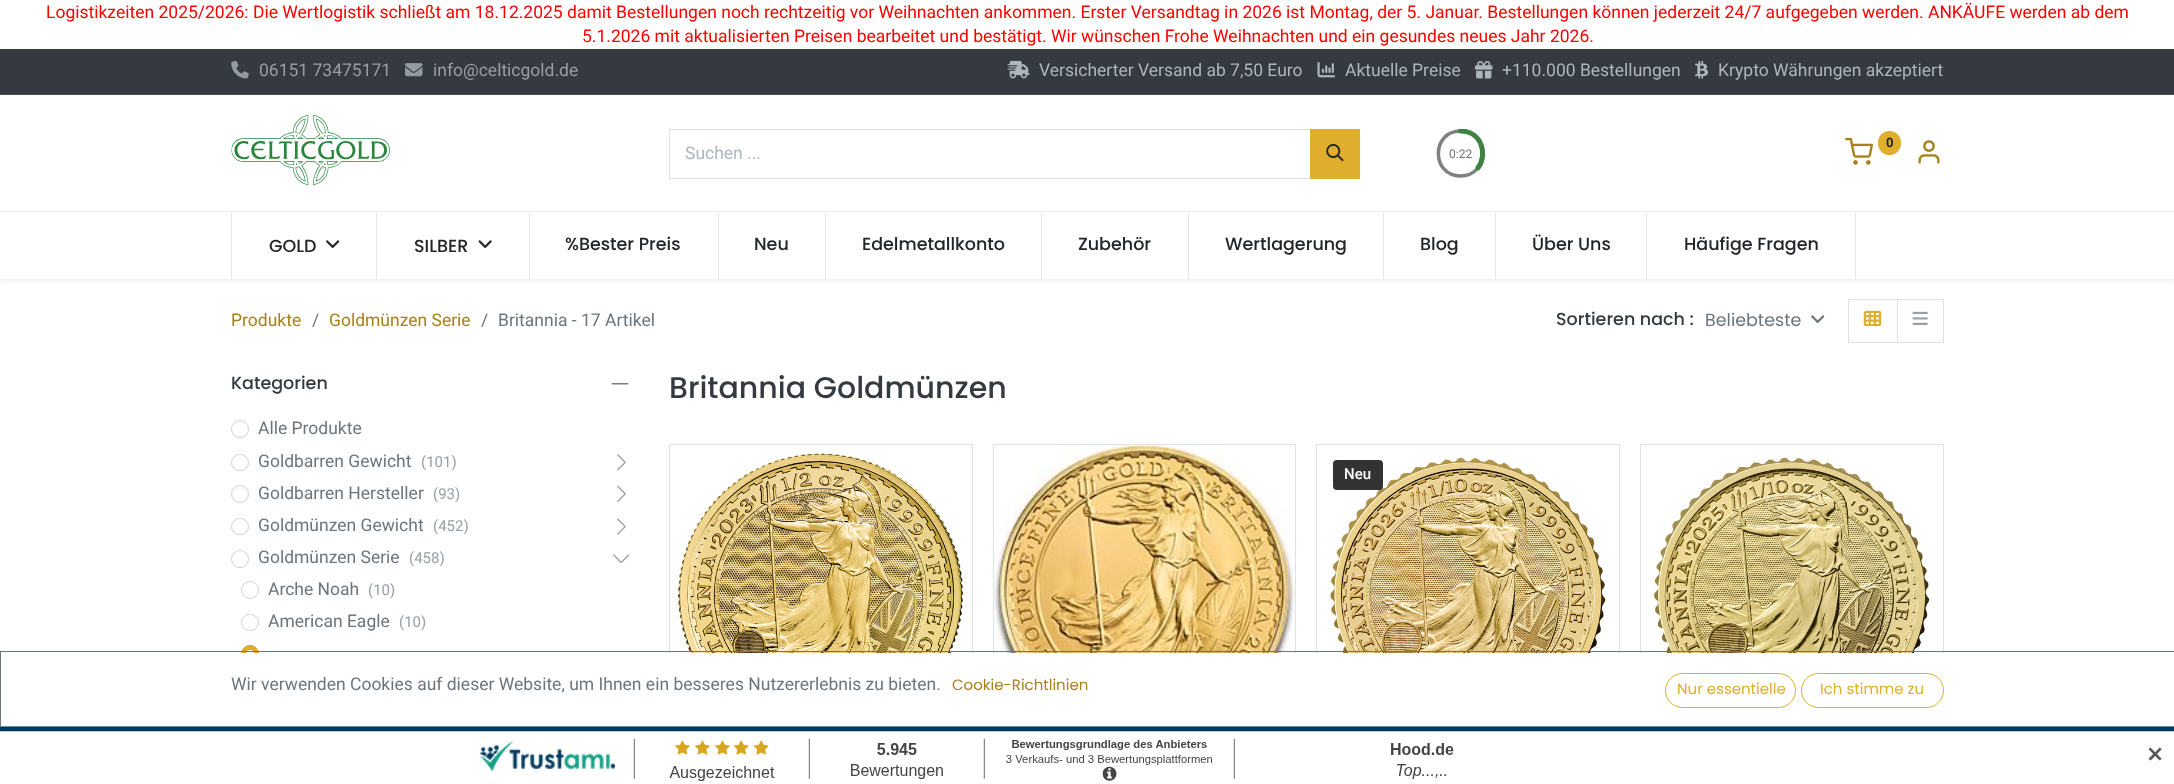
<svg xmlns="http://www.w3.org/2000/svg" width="2174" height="784">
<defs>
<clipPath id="clip1"><rect x="1435" y="129" width="50" height="50"/></clipPath>
</defs>
<rect width="100%" height="100%" fill="#fff"/>
<text x="46" y="18" style="font-family:Roboto;font-size:17.5px;fill:#f00">Logistikzeiten 2025/2026: Die Wertlogistik schließt am 18.12.2025 damit Bestellungen noch rechtzeitig vor Weihnachten ankommen. Erster Versandtag in 2026 ist Montag, der 5. Januar. Bestellungen können jederzeit 24/7 aufgegeben werden. ANKÄUFE werden ab dem</text>
<text x="582" y="42" style="font-family:Roboto;font-size:17.5px;fill:#f00">5.1.2026 mit aktualisierten Preisen bearbeitet und bestätigt. Wir wünschen Frohe Weihnachten und ein gesundes neues Jahr 2026.</text>
<rect y="49" width="2174" height="45" fill="#343a40"/>
<rect y="94" width="2174" height="1" fill="#4c5257"/>
<image x="231" y="61" width="18" height="18" href="media/1.png"/>
<text x="259" y="76" style="font-family:Roboto;font-size:17.5px;fill:#989ea4">06151 73475171</text>
<image x="405" y="63" width="18" height="14" href="media/2.png"/>
<text x="433" y="76" style="font-family:Roboto;font-size:17.5px;fill:#989ea4">info@celticgold.de</text>
<image x="1007" y="60" width="23" height="19" href="media/3.png"/>
<text x="1039" y="76" style="font-family:Roboto;font-size:17.5px;fill:#adb5bd">Versicherter Versand ab 7,50 Euro</text>
<image x="1317" y="62" width="18" height="16" href="media/4.png"/>
<text x="1345" y="76" style="font-family:Roboto;font-size:17.5px;fill:#adb5bd">Aktuelle Preise</text>
<image x="1475" y="61" width="18" height="18" href="media/5.png"/>
<text x="1502" y="76" style="font-family:Roboto;font-size:17.5px;fill:#adb5bd">+110.000 Bestellungen</text>
<image x="1695" y="60" width="13" height="19" href="media/6.png"/>
<text x="1718" y="76" style="font-family:Roboto;font-size:17.5px;fill:#adb5bd">Krypto Währungen akzeptiert</text>
<rect y="211" width="2174" height="1" fill="#edeeef"/>
<image x="231" y="115" width="159" height="70" href="media/7.png"/>
<image x="1845" y="137" width="28" height="28" href="media/8.png"/>
<rect x="1878" y="131" width="23" height="24" rx="11.5" fill="#e0ae2d"/>
<text x="1886" y="147" style="font-family:Roboto;font-size:13px;font-weight:bold;fill:#212529">0</text>
<image x="1918" y="140" width="22" height="24" href="media/9.png"/>
<rect x="669.5" y="129.5" width="641" height="49" fill="none" stroke="#dee2e6"/>
<text x="685" y="159" style="font-family:Roboto;font-size:17.5px;fill:#adb5bd">Suchen ...</text>
<rect x="1310" y="129" width="50" height="50" fill="#e0ae2d"/>
<image x="1326" y="144" width="18" height="18" href="media/10.png"/>
<path d="M1460.5 131c-29.5 0-29.5 45 0 45c29.5 0 29.5-45 0-45z" fill="none" stroke="#808080" stroke-width="3.5"/>
<g clip-path="url(#clip1)">
<path d="M1460.5 131c29.5 0 29.5 45 0 45c-29.5 0-29.5-45 0-45" fill="none" stroke="#3e8341" stroke-width="5" stroke-linecap="round" stroke-dasharray="50.5 141.5"/>
</g>
<text x="1449" y="158" style="font-family:Roboto;font-size:12px;fill:#6c757d">0:22</text>
<rect y="215" width="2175" height="66" fill="#00000012" filter="blur(2.5px)"/>
<rect y="213" width="2174" height="66" fill="#fff"/>
<rect x="231" y="213" width="1" height="66" fill="#e4e5e5"/>
<text x="269" y="252" style="font-family:Poppins;font-size:17.5px;font-weight:500;fill:#212529">GOLD</text>
<image x="326" y="240" width="14" height="8" href="media/11.png"/>
<rect x="376" y="213" width="1" height="66" fill="#e4e5e5"/>
<text x="414" y="252" style="font-family:Poppins;font-size:17.5px;font-weight:500;fill:#212529">SILBER</text>
<image x="478" y="240" width="14" height="8" href="media/12.png"/>
<rect x="529" y="213" width="1" height="66" fill="#e4e5e5"/>
<text x="565" y="250" style="font-family:Poppins;font-size:17.5px;font-weight:500;fill:#212529">%Bester Preis</text>
<rect x="718" y="213" width="1" height="66" fill="#e4e5e5"/>
<text x="754" y="250" style="font-family:Poppins;font-size:17.5px;font-weight:500;fill:#212529">Neu</text>
<rect x="825" y="213" width="1" height="66" fill="#e4e5e5"/>
<text x="862" y="250" style="font-family:Poppins;font-size:17.5px;font-weight:500;fill:#212529">Edelmetallkonto</text>
<rect x="1041" y="213" width="1" height="66" fill="#e4e5e5"/>
<text x="1078" y="250" style="font-family:Poppins;font-size:17.5px;font-weight:500;fill:#212529">Zubehör</text>
<rect x="1188" y="213" width="1" height="66" fill="#e4e5e5"/>
<text x="1225" y="250" style="font-family:Poppins;font-size:17.5px;font-weight:500;fill:#212529">Wertlagerung</text>
<rect x="1383" y="213" width="1" height="66" fill="#e4e5e5"/>
<text x="1420" y="250" style="font-family:Poppins;font-size:17.5px;font-weight:500;fill:#212529">Blog</text>
<rect x="1495" y="213" width="1" height="66" fill="#e4e5e5"/>
<text x="1532" y="250" style="font-family:Poppins;font-size:17.5px;font-weight:500;fill:#212529">Über Uns</text>
<rect x="1855" y="213" width="1" height="66" fill="#e4e5e5"/>
<rect x="1646" y="213" width="1" height="66" fill="#e4e5e5"/>
<text x="1684" y="250" style="font-family:Poppins;font-size:17.5px;font-weight:500;fill:#212529">Häufige Fragen</text>
<text x="231" y="326" style="font-family:Roboto;font-size:17.5px;fill:#a88019">Produkte</text>
<text x="312" y="326" style="font-family:Roboto;font-size:17.5px;fill:#6c757d">/</text>
<text x="329" y="326" style="font-family:Roboto;font-size:17.5px;fill:#a88019">Goldmünzen Serie</text>
<text x="481" y="326" style="font-family:Roboto;font-size:17.5px;fill:#6c757d">/</text>
<text x="498" y="326" style="font-family:Roboto;font-size:17.5px;fill:#6c757d">Britannia - 17 Artikel</text>
<text x="1556" y="325" style="font-family:Poppins;font-size:17.5px;font-weight:500;fill:#343a40">Sortieren nach :</text>
<text x="1705" y="326" style="font-family:Poppins;font-size:17.5px;fill:#6c757d">Beliebteste</text>
<image x="1811" y="315" width="14" height="8" href="media/13.png"/>
<rect x="1896.5" y="299.5" width="47" height="43" fill="none" stroke="#dee2e6"/>
<rect x="1896" y="300" width="1" height="42" fill="#fff"/>
<rect x="1848.5" y="299.5" width="49" height="43" fill="none" stroke="#dee2e6"/>
<image x="1863" y="310" width="19" height="17" href="media/14.png"/>
<image x="1912" y="311" width="16" height="14" href="media/15.png"/>
<text x="231" y="389" style="font-family:Poppins;font-size:17.5px;font-weight:500;fill:#343a40">Kategorien</text>
<image x="611" y="383" width="18" height="2" href="media/16.png"/>
<circle cx="240" cy="429" r="8.5" fill="none" stroke="#ced4da"/>
<text x="258" y="434" style="font-family:Roboto;font-size:17.5px;fill:#6c757d">Alle Produkte</text>
<rect x="231.5" y="454.5" width="17" height="16" rx="8" fill="none" stroke="#ced4da"/>
<text x="258" y="467" style="font-family:Roboto;font-size:17.5px;fill:#6c757d">Goldbarren Gewicht</text>
<text x="421" y="467" style="font-family:Roboto;font-size:15px;fill:#989ea4">(101)</text>
<image x="617" y="454" width="9" height="17" href="media/17.png"/>
<circle cx="240" cy="494" r="8.5" fill="none" stroke="#ced4da"/>
<text x="258" y="499" style="font-family:Roboto;font-size:17.5px;fill:#6c757d">Goldbarren Hersteller</text>
<text x="433" y="499" style="font-family:Roboto;font-size:15px;fill:#989ea4">(93)</text>
<image x="617" y="485" width="9" height="17" href="media/18.png"/>
<rect x="231.5" y="518.5" width="17" height="16" rx="8" fill="none" stroke="#ced4da"/>
<text x="258" y="531" style="font-family:Roboto;font-size:17.5px;fill:#6c757d">Goldmünzen Gewicht</text>
<text x="433" y="531" style="font-family:Roboto;font-size:15px;fill:#989ea4">(452)</text>
<image x="617" y="518" width="9" height="17" href="media/19.png"/>
<circle cx="240" cy="559" r="8.5" fill="none" stroke="#ced4da"/>
<text x="258" y="563" style="font-family:Roboto;font-size:17.5px;fill:#6c757d">Goldmünzen Serie</text>
<text x="409" y="563" style="font-family:Roboto;font-size:15px;fill:#989ea4">(458)</text>
<image x="613" y="554" width="17" height="9" href="media/20.png"/>
<circle cx="250" cy="590" r="8.5" fill="none" stroke="#ced4da"/>
<text x="268" y="595" style="font-family:Roboto;font-size:17.5px;fill:#6c757d">Arche Noah</text>
<text x="368" y="595" style="font-family:Roboto;font-size:15px;fill:#989ea4">(10)</text>
<rect x="241.5" y="614.5" width="17" height="16" rx="8" fill="none" stroke="#ced4da"/>
<text x="268" y="627" style="font-family:Roboto;font-size:17.5px;fill:#6c757d">American Eagle</text>
<text x="399" y="627" style="font-family:Roboto;font-size:15px;fill:#989ea4">(10)</text>
<circle cx="250" cy="654" r="9" fill="#e0ae2d"/>
<circle cx="250" cy="654" r="4" fill="#fff"/>
<circle cx="250" cy="654" r="8.5" fill="none" stroke="#e0ae2d"/>
<text x="669" y="398" style="font-family:Poppins;font-size:30px;font-weight:500;fill:#343a40">Britannia Goldmünzen</text>
<rect x="669.5" y="444.5" width="303" height="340" fill="none" stroke="#dee2e6"/>
<image x="677" y="453" width="287" height="200" href="media/21.png"/>
<rect x="993.5" y="444.5" width="302" height="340" fill="none" stroke="#dee2e6"/>
<image x="994" y="445" width="301" height="208" href="media/22.png"/>
<rect x="1316.5" y="444.5" width="303" height="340" fill="none" stroke="#dee2e6"/>
<image x="1330" y="457" width="276" height="196" href="media/23.png"/>
<rect x="1333" y="460" width="50" height="30" rx="4" fill="#000000cc"/>
<text x="1344" y="479" style="font-family:Roboto;font-size:15px;font-weight:500;fill:#fff">Neu</text>
<rect x="1640.5" y="444.5" width="303" height="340" fill="none" stroke="#dee2e6"/>
<image x="1651" y="454" width="280" height="199" href="media/24.png"/>
<rect x="0.5" y="651.5" width="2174" height="77" fill="none" stroke="#6c757d"/>
<rect x="241" y="653" width="1703" height="73" fill="#fff"/>
<text x="231" y="690" style="font-family:Roboto;font-size:17.5px;fill:#6c757d">Wir verwenden Cookies auf dieser Website, um Ihnen ein besseres Nutzererlebnis zu bieten.</text>
<text x="952" y="690" style="font-family:Poppins;font-size:15px;fill:#a88019">Cookie-Richtlinien</text>
<rect x="1665.5" y="673.5" width="130" height="34" rx="17" fill="none" stroke="#e0ae2d"/>
<text x="1677" y="694" style="font-family:Poppins;font-size:15px;fill:#e0ae2d">Nur essentielle</text>
<rect x="1801.5" y="673.5" width="142" height="34" rx="17" fill="none" stroke="#e0ae2d"/>
<text x="1820" y="694" style="font-family:Poppins;font-size:15px;fill:#e0ae2d">Ich stimme zu</text>
<image x="0" y="726" width="2174" height="58" href="media/25.png"/>
<text x="2146" y="762" style="font-family:DejaVu Sans;font-size:21px;font-weight:bold;fill:#595959">✕</text>
</svg>
